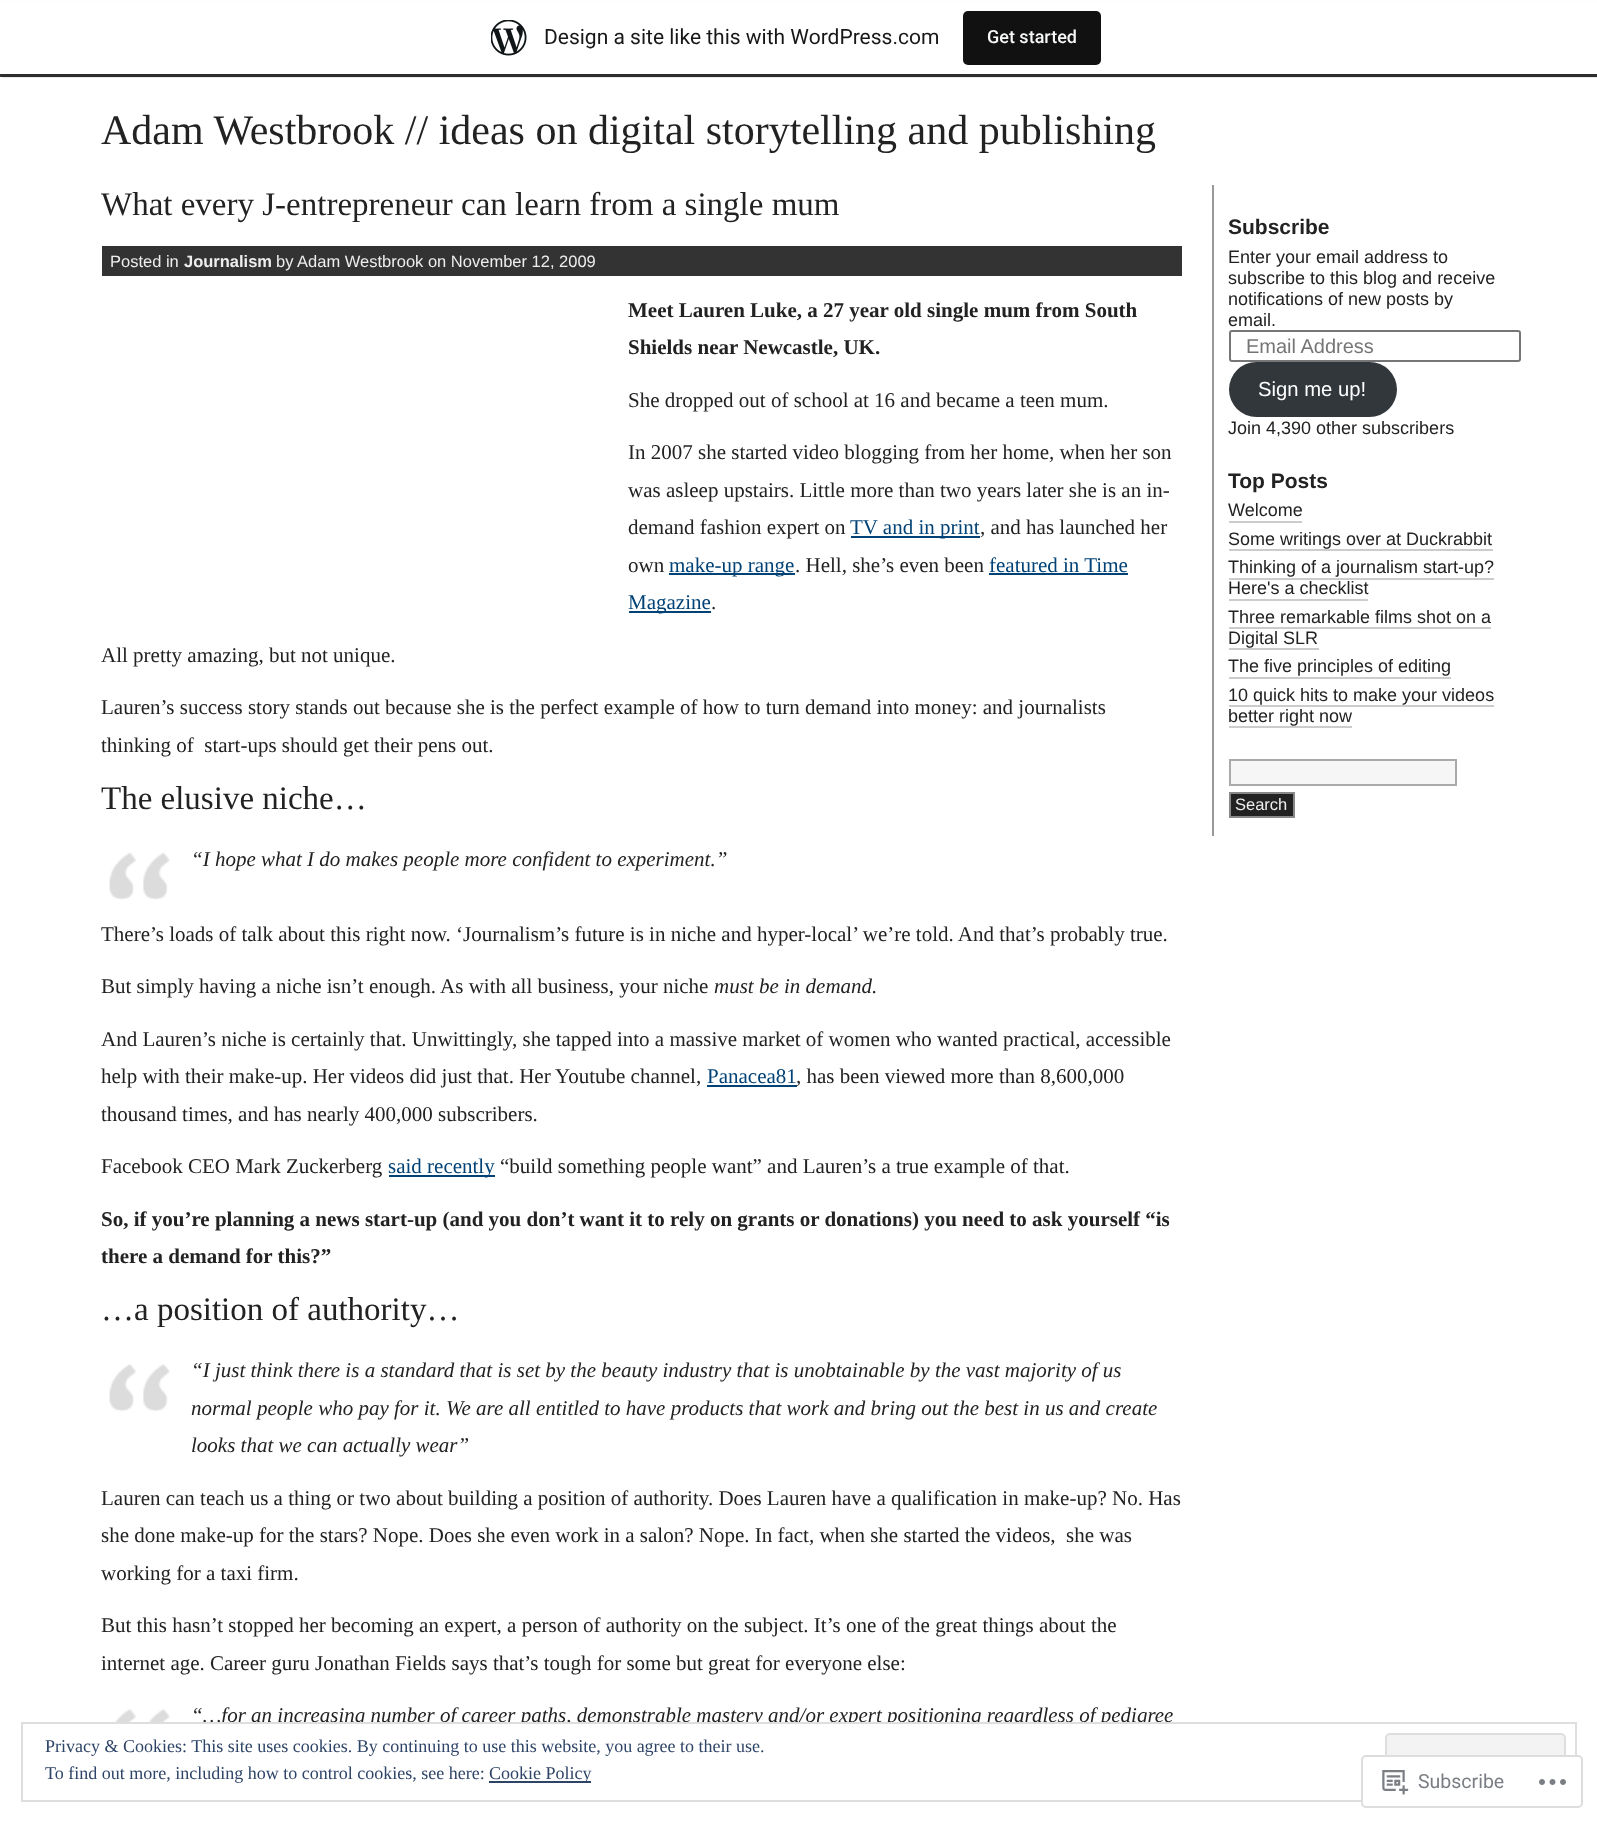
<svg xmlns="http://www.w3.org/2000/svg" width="1597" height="1822">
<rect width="100%" height="100%" fill="#fff"/>
<rect y="74" width="1597" height="3" fill="#333"/>
<rect y="2" width="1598" height="73" fill="#0000000d" filter="blur(1.5px)"/>
<path d="M2 74v4h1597v-73h-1v69z" fill="#00000014"/>
<rect y="1" width="1597" height="73" fill="#fff"/>
<image x="491" y="20" width="36" height="36" href="media/1.png"/>
<text x="544" y="44" style="font-family:Roboto;font-size:21px;fill:#171717">Design a site like this with WordPress.com</text>
<rect x="963" y="11" width="138" height="54" rx="5" fill="#111"/>
<text x="987" y="43" style="font-family:Roboto;font-size:18px;font-weight:500;fill:#f6f7f7">Get started</text>
<text x="101" y="144" style="font-family:Liberation Serif;font-size:42px;fill:#222">Adam Westbrook // ideas on digital storytelling and publishing</text>
<text x="101" y="215" style="font-family:Liberation Serif;font-size:33px;fill:#222">What every J-entrepreneur can learn from a single mum</text>
<rect x="102" y="246" width="1080" height="30" fill="#333"/>
<text x="110" y="267" style="font-family:Liberation Sans;font-size:16.5px;fill:#eee">Posted in</text>
<text x="184" y="267" style="font-family:Liberation Sans;font-size:16.5px;font-weight:bold;fill:#eee">Journalism</text>
<text x="276" y="267" style="font-family:Liberation Sans;font-size:16.5px;fill:#eee">by Adam Westbrook on November 12, 2009</text>
<text x="628" y="317" style="font-family:Liberation Serif;font-size:21px;font-weight:bold;fill:#222">Meet Lauren Luke, a 27 year old single mum from South</text>
<text x="628" y="354" style="font-family:Liberation Serif;font-size:21px;font-weight:bold;fill:#222">Shields near Newcastle, UK.</text>
<text x="628" y="407" style="font-family:Liberation Serif;font-size:21px;fill:#222">She dropped out of school at 16 and became a teen mum.</text>
<text x="628" y="459" style="font-family:Liberation Serif;font-size:21px;fill:#222">In 2007 she started video blogging from her home, when her son</text>
<text x="628" y="497" style="font-family:Liberation Serif;font-size:21px;fill:#222">was asleep upstairs. Little more than two years later she is an in-</text>
<text x="628" y="534" style="font-family:Liberation Serif;font-size:21px;fill:#222">demand fashion expert on</text>
<rect x="851" y="536" width="129" height="2" fill="#004276"/>
<text x="850" y="534" style="font-family:Liberation Serif;font-size:21px;fill:#004276">TV and in print</text>
<text x="980" y="534" style="font-family:Liberation Serif;font-size:21px;fill:#222">, and has launched her</text>
<text x="628" y="572" style="font-family:Liberation Serif;font-size:21px;fill:#222">own</text>
<rect x="669" y="573" width="126" height="2" fill="#004276"/>
<text x="669" y="572" style="font-family:Liberation Serif;font-size:21px;fill:#004276">make-up range</text>
<text x="795" y="572" style="font-family:Liberation Serif;font-size:21px;fill:#222">. Hell, she’s even been</text>
<text x="989" y="572" style="font-family:Liberation Serif;font-size:21px;fill:#004276">featured in Time</text>
<rect x="989" y="573" width="139" height="2" fill="#004276"/>
<rect x="629" y="611" width="82" height="2" fill="#004276"/>
<text x="628" y="609" style="font-family:Liberation Serif;font-size:21px;fill:#004276">Magazine</text>
<text x="711" y="609" style="font-family:Liberation Serif;font-size:21px;fill:#222">.</text>
<text x="101" y="662" style="font-family:Liberation Serif;font-size:21px;fill:#222">All pretty amazing, but not unique.</text>
<text x="101" y="714" style="font-family:Liberation Serif;font-size:21px;fill:#222">Lauren’s success story stands out because she is the perfect example of how to turn demand into money: and journalists</text>
<text x="101" y="752" style="font-family:Liberation Serif;font-size:21px;fill:#222" xml:space="preserve">thinking of  start-ups should get their pens out.</text>
<text x="101" y="809" style="font-family:Liberation Serif;font-size:33px;fill:#222">The elusive niche…</text>
<image x="109" y="852" width="61" height="48" href="media/2.png"/>
<text x="191" y="866" style="font-family:Liberation Serif;font-size:21px;font-style:italic;fill:#222">“I hope what I do makes people more confident to experiment.”</text>
<text x="101" y="941" style="font-family:Liberation Serif;font-size:21px;fill:#222">There’s loads of talk about this right now. ‘Journalism’s future is in niche and hyper-local’ we’re told. And that’s probably true.</text>
<text x="101" y="993" style="font-family:Liberation Serif;font-size:21px;fill:#222">But simply having a niche isn’t enough. As with all business, your niche</text>
<text x="714" y="993" style="font-family:Liberation Serif;font-size:21px;font-style:italic;fill:#222">must be in demand.</text>
<text x="101" y="1046" style="font-family:Liberation Serif;font-size:21px;fill:#222">And Lauren’s niche is certainly that. Unwittingly, she tapped into a massive market of women who wanted practical, accessible</text>
<text x="101" y="1083" style="font-family:Liberation Serif;font-size:21px;fill:#222">help with their make-up. Her videos did just that. Her Youtube channel,</text>
<text x="707" y="1083" style="font-family:Liberation Serif;font-size:21px;fill:#004276">Panacea81</text>
<rect x="707" y="1085" width="90" height="2" fill="#004276"/>
<text x="796" y="1083" style="font-family:Liberation Serif;font-size:21px;fill:#222">, has been viewed more than 8,600,000</text>
<text x="101" y="1121" style="font-family:Liberation Serif;font-size:21px;fill:#222">thousand times, and has nearly 400,000 subscribers.</text>
<text x="101" y="1173" style="font-family:Liberation Serif;font-size:21px;fill:#222">Facebook CEO Mark Zuckerberg</text>
<rect x="389" y="1175" width="106" height="2" fill="#004276"/>
<text x="388" y="1173" style="font-family:Liberation Serif;font-size:21px;fill:#004276">said recently</text>
<text x="500" y="1173" style="font-family:Liberation Serif;font-size:21px;fill:#222">“build something people want” and Lauren’s a true example of that.</text>
<text x="101" y="1226" style="font-family:Liberation Serif;font-size:21px;font-weight:bold;fill:#222">So, if you’re planning a news start-up (and you don’t want it to rely on grants or donations) you need to ask yourself “is</text>
<text x="101" y="1263" style="font-family:Liberation Serif;font-size:21px;font-weight:bold;fill:#222">there a demand for this?”</text>
<text x="101" y="1320" style="font-family:Liberation Serif;font-size:33px;fill:#222">…a position of authority…</text>
<image x="109" y="1364" width="61" height="48" href="media/3.png"/>
<text x="191" y="1377" style="font-family:Liberation Serif;font-size:21px;font-style:italic;fill:#222">“I just think there is a standard that is set by the beauty industry that is unobtainable by the vast majority of us</text>
<text x="191" y="1415" style="font-family:Liberation Serif;font-size:21px;font-style:italic;fill:#222">normal people who pay for it. We are all entitled to have products that work and bring out the best in us and create</text>
<text x="191" y="1452" style="font-family:Liberation Serif;font-size:21px;font-style:italic;fill:#222">looks that we can actually wear”</text>
<text x="101" y="1505" style="font-family:Liberation Serif;font-size:21px;fill:#222">Lauren can teach us a thing or two about building a position of authority. Does Lauren have a qualification in make-up? No. Has</text>
<text x="101" y="1542" style="font-family:Liberation Serif;font-size:21px;fill:#222" xml:space="preserve">she done make-up for the stars? Nope. Does she even work in a salon? Nope. In fact, when she started the videos,  she was</text>
<text x="101" y="1580" style="font-family:Liberation Serif;font-size:21px;fill:#222">working for a taxi firm.</text>
<text x="101" y="1632" style="font-family:Liberation Serif;font-size:21px;fill:#222">But this hasn’t stopped her becoming an expert, a person of authority on the subject. It’s one of the great things about the</text>
<text x="101" y="1670" style="font-family:Liberation Serif;font-size:21px;fill:#222">internet age. Career guru Jonathan Fields says that’s tough for some but great for everyone else:</text>
<image x="109" y="1709" width="61" height="13" href="media/4.png"/>
<text x="191" y="1722" style="font-family:Liberation Serif;font-size:21px;font-style:italic;fill:#222">“…for an increasing number of career paths, demonstrable mastery and/or expert positioning regardless of pedigree</text>
<rect x="1212" y="185" width="2" height="651" fill="#999"/>
<text x="1228" y="234" style="font-family:Liberation Sans;font-size:21px;font-weight:bold;fill:#222">Subscribe</text>
<text x="1228" y="263" style="font-family:Liberation Sans;font-size:18px;fill:#222">Enter your email address to</text>
<text x="1228" y="284" style="font-family:Liberation Sans;font-size:18px;fill:#222">subscribe to this blog and receive</text>
<text x="1228" y="305" style="font-family:Liberation Sans;font-size:18px;fill:#222">notifications of new posts by</text>
<text x="1228" y="326" style="font-family:Liberation Sans;font-size:18px;fill:#222">email.</text>
<rect x="1230" y="331" width="290" height="30" rx="2" fill="none" stroke="#767676" stroke-width="2"/>
<text x="1246" y="353" style="font-family:Liberation Sans;font-size:20px;fill:#757575">Email Address</text>
<rect x="1229" y="362" width="168" height="55" rx="27.5" fill="#32373c"/>
<text x="1258" y="396" style="font-family:Liberation Sans;font-size:20.25px;fill:#fff">Sign me up!</text>
<text x="1228" y="434" style="font-family:Liberation Sans;font-size:18px;fill:#222">Join 4,390 other subscribers</text>
<text x="1228" y="488" style="font-family:Liberation Sans;font-size:21px;font-weight:bold;fill:#222">Top Posts</text>
<text x="1228" y="516" style="font-family:Liberation Sans;font-size:18px;fill:#222">Welcome</text>
<rect x="1229" y="521" width="73" height="2" fill="#ccc"/>
<text x="1228" y="545" style="font-family:Liberation Sans;font-size:18px;fill:#222">Some writings over at Duckrabbit</text>
<rect x="1229" y="549" width="264" height="2" fill="#ccc"/>
<text x="1228" y="573" style="font-family:Liberation Sans;font-size:18px;fill:#222">Thinking of a journalism start-up?</text>
<text x="1228" y="594" style="font-family:Liberation Sans;font-size:18px;fill:#222">Here's a checklist</text>
<rect x="1229" y="578" width="265" height="2" fill="#ccc"/>
<rect x="1229" y="599" width="139" height="2" fill="#ccc"/>
<text x="1228" y="623" style="font-family:Liberation Sans;font-size:18px;fill:#222">Three remarkable films shot on a</text>
<text x="1228" y="644" style="font-family:Liberation Sans;font-size:18px;fill:#222">Digital SLR</text>
<rect x="1229" y="627" width="262" height="2" fill="#ccc"/>
<rect x="1229" y="648" width="90" height="2" fill="#ccc"/>
<text x="1228" y="672" style="font-family:Liberation Sans;font-size:18px;fill:#222">The five principles of editing</text>
<rect x="1229" y="677" width="222" height="2" fill="#ccc"/>
<text x="1228" y="701" style="font-family:Liberation Sans;font-size:18px;fill:#222">10 quick hits to make your videos</text>
<rect x="1229" y="705" width="265" height="2" fill="#ccc"/>
<text x="1228" y="722" style="font-family:Liberation Sans;font-size:18px;fill:#222">better right now</text>
<rect x="1229" y="726" width="123" height="2" fill="#ccc"/>
<rect x="1230" y="760" width="226" height="25" fill="#f6f6f6" stroke="#aaa" stroke-width="2"/>
<rect x="1230" y="793" width="64" height="24" fill="#222" stroke="#888" stroke-width="2"/>
<text x="1235" y="810" style="font-family:Liberation Sans;font-size:16.5px;fill:#eee">Search</text>
<rect x="221" y="1724" width="924" height="3" fill="#fff"/>
<rect x="22" y="1723" width="1554" height="78" fill="none" stroke="#dedede" stroke-width="2"/>
<text x="45" y="1752" style="font-family:Liberation Serif;font-size:18px;fill:#2e4467">Privacy &amp; Cookies: This site uses cookies. By continuing to use this website, you agree to their use.</text>
<rect x="1386" y="1734" width="179" height="56" rx="4" fill="#f3f3f3" stroke="#dedede" stroke-width="2"/>
<text x="45" y="1779" style="font-family:Liberation Serif;font-size:18px;fill:#2e4467">To find out more, including how to control cookies, see here:</text>
<rect x="489" y="1781" width="102" height="2" fill="#2e4467"/>
<text x="489" y="1779" style="font-family:Liberation Serif;font-size:18px;fill:#2e4467">Cookie Policy</text>
<rect x="1361" y="1755" width="222" height="53" rx="5" fill="#fffffffa"/>
<rect x="1362" y="1756" width="220" height="51" rx="4" fill="none" stroke="#dcdcdefa" stroke-width="2"/>
<image x="1382" y="1770" width="27" height="25" href="media/5.png"/>
<text x="1418" y="1788" style="font-family:Roboto;font-size:19.5px;fill:#7a7e84">Subscribe</text>
<image x="1539" y="1779" width="27" height="6" href="media/6.png"/>
</svg>
